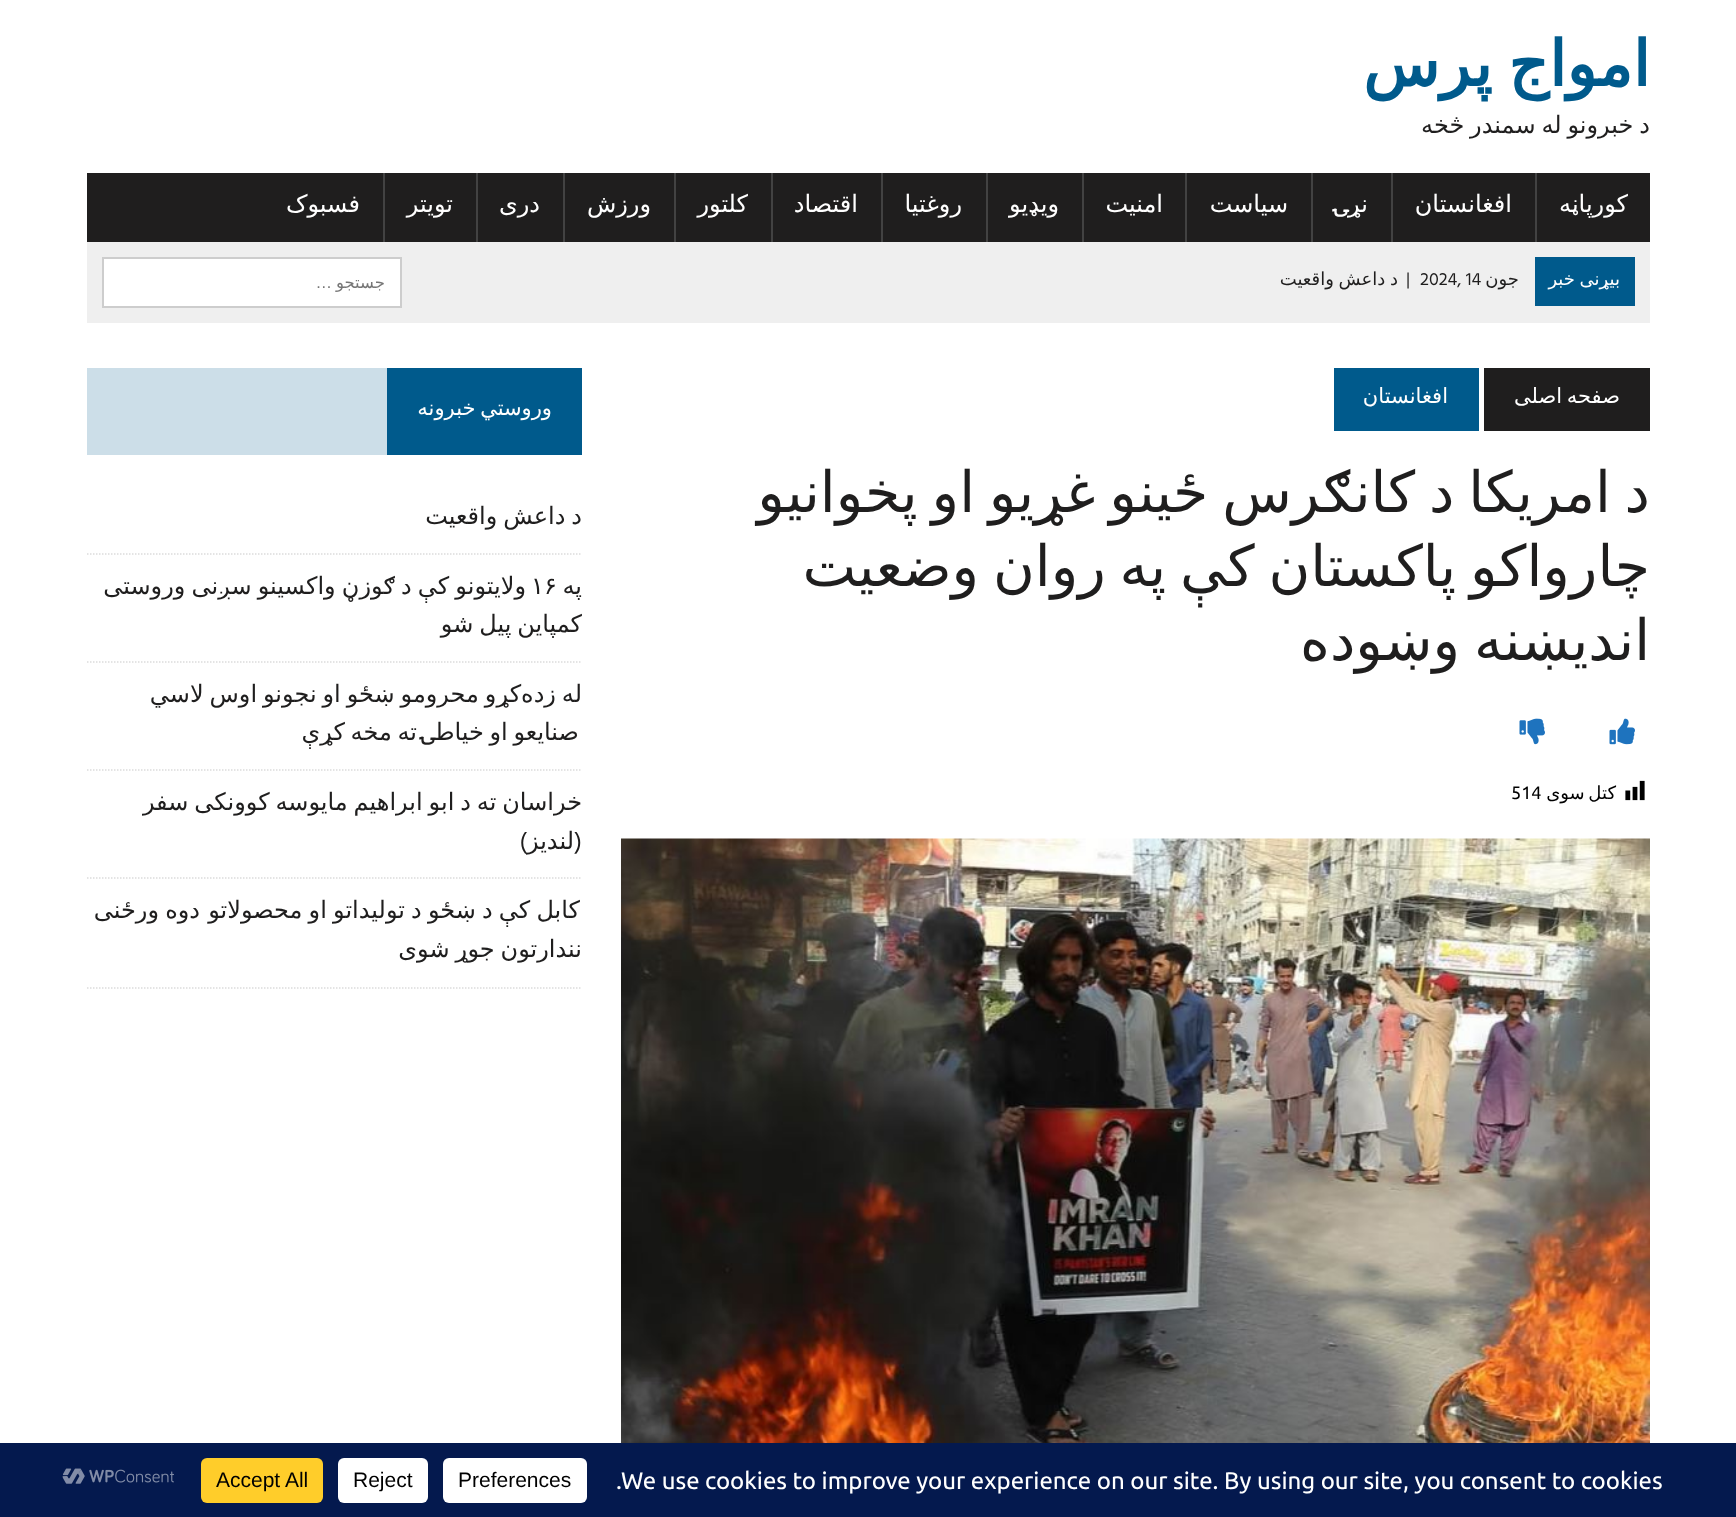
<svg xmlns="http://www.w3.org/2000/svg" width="1736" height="1517">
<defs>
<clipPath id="clip1"><rect x="621" y="368" width="1029" height="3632"/></clipPath>
<clipPath id="clip2"><rect x="87" y="368" width="495" height="621"/></clipPath>
</defs>
<rect width="100%" height="100%" fill="#fff"/>
<text x="1650" y="86" word-spacing="-4" style="font-family:DejaVu Sans;font-size:63px;font-weight:bold;direction:rtl;fill:#005a8c">امواج پرس</text>
<text x="1650" y="133" word-spacing="-1.75" style="font-family:DejaVu Sans;font-size:24px;direction:rtl;fill:#1f1e1e">د خبرونو له سمندر څخه</text>
<rect x="87" y="173" width="1563" height="69" fill="#1f1e1e"/>
<text x="1628" y="212" style="font-family:DejaVu Sans;font-size:24px;direction:rtl;fill:#fff">کورپاڼه</text>
<rect x="1535" y="173" width="2" height="69" fill="#424242"/>
<text x="1512" y="212" style="font-family:DejaVu Sans;font-size:24px;direction:rtl;fill:#fff">افغانستان</text>
<rect x="1391" y="173" width="2" height="69" fill="#424242"/>
<text x="1348" y="212" style="font-family:Cascadia Code;font-size:24px;direction:rtl;fill:#fff">‍ۍ</text>
<text x="1368" y="212" style="font-family:DejaVu Sans;font-size:24px;direction:rtl;fill:#fff">نړ‍</text>
<rect x="1311" y="173" width="2" height="69" fill="#424242"/>
<text x="1288" y="212" style="font-family:DejaVu Sans;font-size:24px;direction:rtl;fill:#fff">سیاست</text>
<rect x="1185" y="173" width="2" height="69" fill="#424242"/>
<text x="1163" y="212" style="font-family:DejaVu Sans;font-size:24px;direction:rtl;fill:#fff">امنیت</text>
<rect x="1082" y="173" width="2" height="69" fill="#424242"/>
<text x="1059" y="212" style="font-family:DejaVu Sans;font-size:24px;direction:rtl;fill:#fff">ویډیو</text>
<rect x="986" y="173" width="2" height="69" fill="#424242"/>
<text x="962" y="212" style="font-family:DejaVu Sans;font-size:24px;direction:rtl;fill:#fff">روغتیا</text>
<rect x="881" y="173" width="2" height="69" fill="#424242"/>
<text x="858" y="212" style="font-family:DejaVu Sans;font-size:24px;direction:rtl;fill:#fff">اقتصاد</text>
<rect x="771" y="173" width="2" height="69" fill="#424242"/>
<text x="748" y="212" style="font-family:DejaVu Sans;font-size:24px;direction:rtl;fill:#fff">کلتور</text>
<rect x="674" y="173" width="2" height="69" fill="#424242"/>
<text x="651" y="212" style="font-family:DejaVu Sans;font-size:24px;direction:rtl;fill:#fff">ورزش</text>
<rect x="563" y="173" width="2" height="69" fill="#424242"/>
<text x="540" y="212" style="font-family:DejaVu Sans;font-size:24px;direction:rtl;fill:#fff">دری</text>
<rect x="476" y="173" width="2" height="69" fill="#424242"/>
<text x="453" y="212" style="font-family:DejaVu Sans;font-size:24px;direction:rtl;fill:#fff">تویتر</text>
<rect x="383" y="173" width="2" height="69" fill="#424242"/>
<text x="360" y="212" style="font-family:DejaVu Sans;font-size:24px;direction:rtl;fill:#fff">فسبوک</text>
<rect x="87" y="242" width="1563" height="81" fill="#efefef"/>
<rect x="1535" y="257" width="100" height="49" fill="#005a8c"/>
<text x="1620" y="285" word-spacing="-1" style="font-family:DejaVu Sans;font-size:18px;direction:rtl;fill:#fff">بیړنی خبر</text>
<text x="1519" y="285" style="font-family:DejaVu Sans;font-size:18px;direction:rtl;fill:#1f1e1e">جون</text>
<text x="1420" y="285" style="font-family:Hind;font-size:18px;fill:#1f1e1e">2024, 14</text>
<text x="1406" y="285" style="font-family:Hind;font-size:18px;fill:#1f1e1e">|</text>
<text x="1398" y="285" word-spacing="-1" style="font-family:DejaVu Sans;font-size:18px;direction:rtl;fill:#1f1e1e">د داعش واقعیت</text>
<rect x="103" y="258" width="298" height="49" fill="#fff" stroke="#cdcdcd" stroke-width="2"/>
<text x="385" y="288" style="font-family:DejaVu Sans;font-size:16.5px;direction:rtl;fill:#757575">جستجو</text>
<text x="332" y="288" style="font-family:Liberation Sans;font-size:16.5px;direction:rtl;fill:#757575">…</text>
<rect x="1484" y="368" width="166" height="63" fill="#1f1e1e"/>
<text x="1620" y="403" word-spacing="-2" style="font-family:DejaVu Sans;font-size:21px;direction:rtl;fill:#fff">صفحه اصلی</text>
<rect x="1334" y="368" width="145" height="63" fill="#005a8c"/>
<text x="1448" y="403" style="font-family:DejaVu Sans;font-size:21px;direction:rtl;fill:#fff">افغانستان</text>
<g clip-path="url(#clip1)">
<text x="1650" y="512" word-spacing="-4.25" style="font-family:DejaVu Sans;font-size:57px;direction:rtl;fill:#1f1e1e">د امریکا د کانګرس ځینو غړیو او پخوانیو</text>
<text x="1650" y="586" word-spacing="-4.25" style="font-family:DejaVu Sans;font-size:57px;direction:rtl;fill:#1f1e1e">چارواکو پاکستان کې په روان وضعیت</text>
</g>
<text x="1650" y="660" word-spacing="-4.25" style="font-family:DejaVu Sans;font-size:57px;direction:rtl;fill:#1f1e1e">اندیښنه وښوده</text>
<image x="1609" y="718" width="26" height="27" href="media/1.png"/>
<image x="1519" y="718" width="26" height="27" href="media/2.png"/>
<image x="1625" y="780" width="20" height="21" href="media/3.png"/>
<text x="1616" y="799" word-spacing="-2" style="font-family:DejaVu Sans;font-size:18px;direction:rtl;fill:#000">کتل سوی</text>
<text x="1511" y="799" style="font-family:Ubuntu;font-size:18px;fill:#000">514</text>
<image x="621" y="838" width="1029" height="605" href="media/4.png"/>
<rect x="87" y="368" width="300" height="87" fill="#ccdee8"/>
<rect x="387" y="368" width="195" height="87" fill="#005a8c"/>
<text x="552" y="415" word-spacing="-2" style="font-family:DejaVu Sans;font-size:21px;direction:rtl;fill:#fff">وروستي خبرونه</text>
<path d="M87 554h495" fill="none" stroke="#dcdcdc" stroke-width="1.5" stroke-dasharray="1.5 1.5"/>
<g clip-path="url(#clip2)">
<text x="582" y="524" word-spacing="-1.75" style="font-family:DejaVu Sans;font-size:24px;direction:rtl;fill:#1f1e1e">د داعش واقعیت</text>
</g>
<path d="M87 662h495" fill="none" stroke="#dcdcdc" stroke-width="1.5" stroke-dasharray="1.5 1.5"/>
<text x="582" y="594" style="font-family:DejaVu Sans;font-size:24px;direction:rtl;fill:#1f1e1e">په</text>
<text x="526" y="594" word-spacing="-1.5" style="font-family:DejaVu Sans;font-size:24px;direction:rtl;fill:#1f1e1e">ولایتونو کې د ګوزڼ واکسینو سږنی وروستی</text>
<text x="531" y="594" style="font-family:DejaVu Sans;font-size:24px;fill:#1f1e1e">۱۶</text>
<g clip-path="url(#clip2)">
<text x="582" y="632" word-spacing="-1.75" style="font-family:DejaVu Sans;font-size:24px;direction:rtl;fill:#1f1e1e">کمپاین پیل شو</text>
</g>
<path d="M87 770h495" fill="none" stroke="#dcdcdc" stroke-width="1.5" stroke-dasharray="1.5 1.5"/>
<g clip-path="url(#clip2)">
<text x="582" y="702" word-spacing="-1.75" style="font-family:DejaVu Sans;font-size:24px;direction:rtl;fill:#1f1e1e">له زده‌کړو محرومو ښځو او نجونو اوس لاسي</text>
</g>
<text x="417" y="740" word-spacing="-2" style="font-family:DejaVu Sans;font-size:24px;direction:rtl;fill:#1f1e1e">ته مخه کړې</text>
<text x="435" y="740" style="font-family:Cascadia Code;font-size:24px;direction:rtl;fill:#1f1e1e">‍ۍ</text>
<text x="579" y="740" word-spacing="-2" style="font-family:DejaVu Sans;font-size:24px;direction:rtl;fill:#1f1e1e">صنایعو او خیاط‍</text>
<path d="M87 878h495" fill="none" stroke="#dcdcdc" stroke-width="1.5" stroke-dasharray="1.5 1.5"/>
<g clip-path="url(#clip2)">
<text x="582" y="810" word-spacing="-1.75" style="font-family:DejaVu Sans;font-size:24px;direction:rtl;fill:#1f1e1e">خراسان ته د ابو ابراهیم مایوسه کوونکی سفر</text>
</g>
<text x="582" y="849" style="font-family:Hind;font-size:24px;direction:rtl;fill:#1f1e1e">(</text>
<text x="574" y="849" style="font-family:DejaVu Sans;font-size:24px;direction:rtl;fill:#1f1e1e">لندیز</text>
<text x="527" y="849" style="font-family:Hind;font-size:24px;direction:rtl;fill:#1f1e1e">)</text>
<path d="M87 988h495" fill="none" stroke="#dcdcdc" stroke-width="1.5" stroke-dasharray="1.5 1.5"/>
<g clip-path="url(#clip2)">
<text x="580" y="918" word-spacing="-1.5" style="font-family:DejaVu Sans;font-size:24px;direction:rtl;fill:#1f1e1e">کابل کې د ښځو د تولیداتو او محصولاتو</text>
</g>
<text x="200" y="918" word-spacing="-1.5" style="font-family:DejaVu Sans;font-size:24px;direction:rtl;fill:#1f1e1e">دوه ورځنی</text>
<g clip-path="url(#clip2)">
<text x="582" y="957" word-spacing="-1.75" style="font-family:DejaVu Sans;font-size:24px;direction:rtl;fill:#1f1e1e">نندارتون جوړ شوی</text>
</g>
<rect y="1443" width="1736" height="74" fill="#04194e"/>
<text x="616" y="1489" style="font-family:Ubuntu;font-size:24px;fill:#fff">.We use cookies to improve your experience on our site. By using our site, you consent to cookies</text>
<rect x="443" y="1458" width="144" height="45" rx="6" fill="#fff"/>
<text x="458" y="1487" style="font-family:Liberation Sans;font-size:21px;fill:#000">Preferences</text>
<rect x="338" y="1458" width="90" height="45" rx="6" fill="#fff"/>
<text x="353" y="1487" style="font-family:Liberation Sans;font-size:21px;fill:#000">Reject</text>
<rect x="201" y="1458" width="122" height="45" rx="6" fill="#ffcd2a"/>
<text x="216" y="1487" style="font-family:Liberation Sans;font-size:21px;fill:#000">Accept All</text>
<image x="62" y="1468" width="112" height="16" href="media/5.png"/>
</svg>
